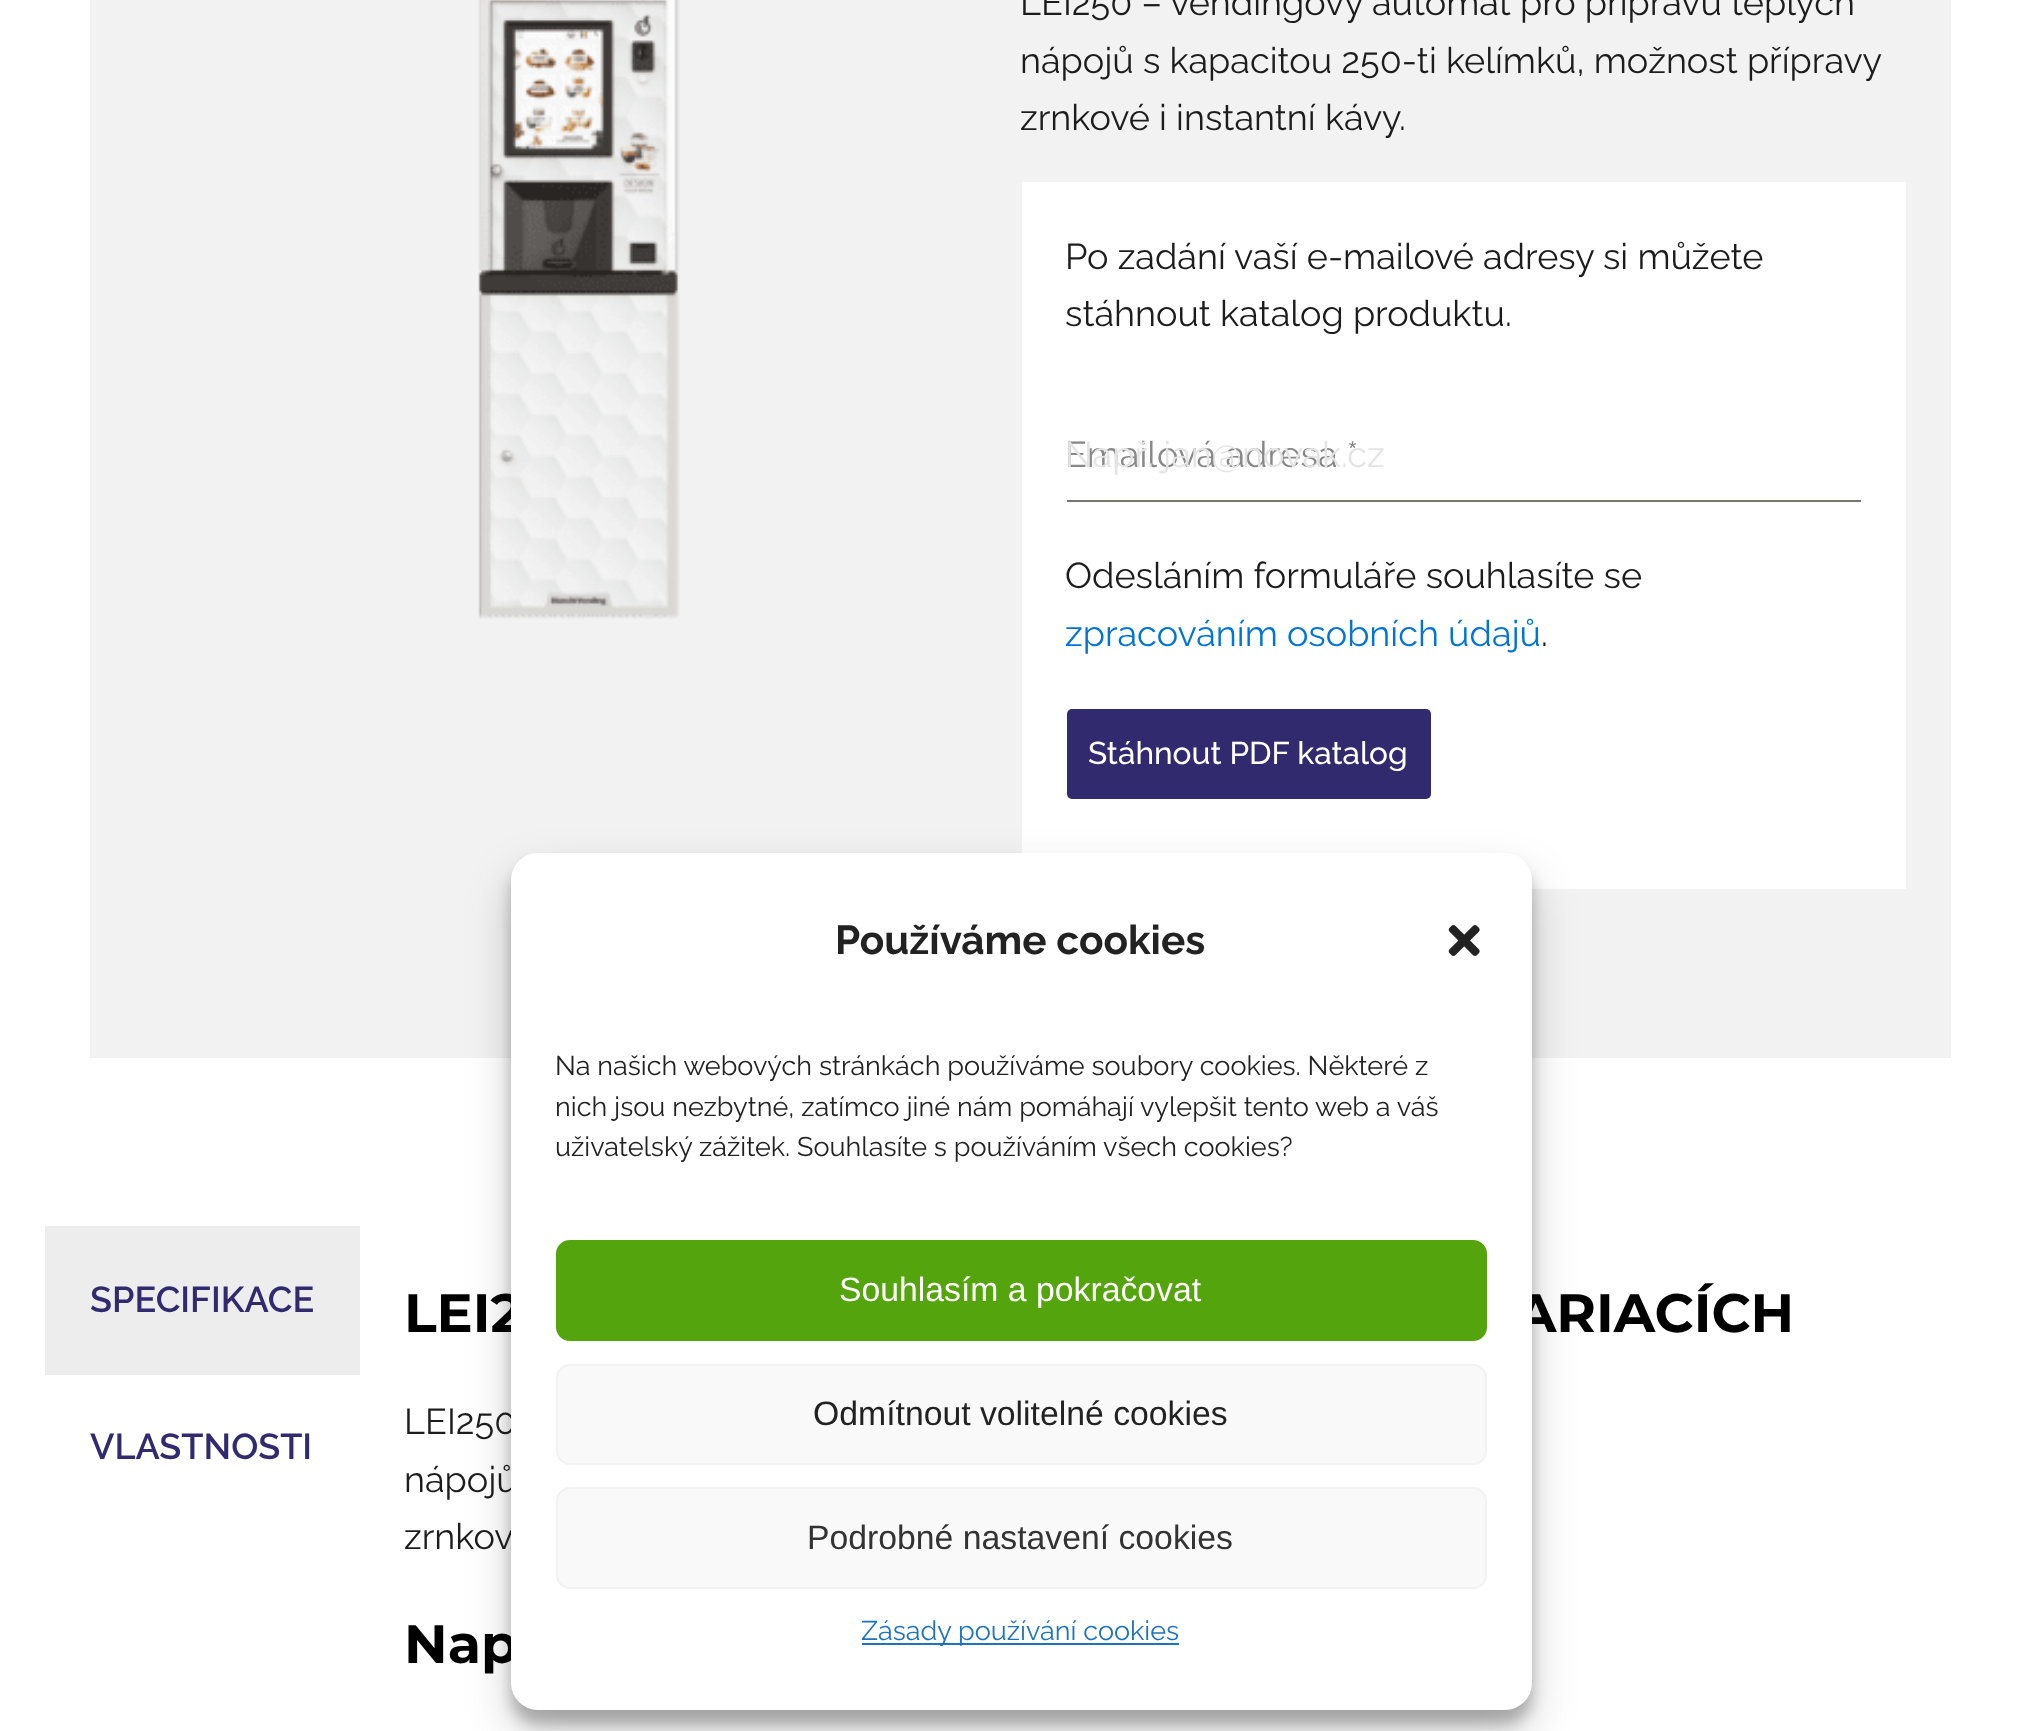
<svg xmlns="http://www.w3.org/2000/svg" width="2039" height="1731">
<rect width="100%" height="100%" fill="#fff"/>
<rect x="90" width="1861" height="1058" fill="#f2f2f2"/>
<image x="478" y="0" width="202" height="619" href="media/1.png"/>
<text x="1020" y="15" style="font-family:Raleway;font-size:36px;fill:#1c1c1c">LEI250 – vendingový automat pro přípravu teplých</text>
<text x="1020" y="73" style="font-family:Raleway;font-size:36px;fill:#1c1c1c">nápojů s kapacitou 250-ti kelímků, možnost přípravy</text>
<text x="1020" y="130" style="font-family:Raleway;font-size:36px;fill:#1c1c1c">zrnkové i instantní kávy.</text>
<rect x="1022" y="182" width="884" height="707" fill="#fff"/>
<text x="1065" y="269" style="font-family:Raleway;font-size:36px;fill:#1c1c1c">Po zadání vaší e-mailové adresy si můžete</text>
<text x="1065" y="326" style="font-family:Raleway;font-size:36px;fill:#1c1c1c">stáhnout katalog produktu.</text>
<text x="1065" y="467" style="font-family:Raleway;font-size:36px;fill:#888">Emailová adresa *</text>
<rect x="1067" y="500" width="794" height="2" fill="#777771"/>
<text x="1065" y="467" style="font-family:Raleway;font-size:36px;fill:#e4e4e4">Např. jan@novak.cz</text>
<text x="1065" y="588" style="font-family:Raleway;font-size:36px;fill:#1c1c1c">Odesláním formuláře souhlasíte se</text>
<text x="1065" y="646" style="font-family:Raleway;font-size:36px;fill:#0074db">zpracováním osobních údajů</text>
<text x="1541" y="646" style="font-family:Raleway;font-size:36px;fill:#1c1c1c">.</text>
<rect x="1067" y="709" width="364" height="90" rx="5" fill="#312a6f"/>
<text x="1088" y="764" style="font-family:Raleway;font-size:31.5px;font-weight:500;fill:#fff">Stáhnout PDF katalog</text>
<rect x="511" y="866" width="1021" height="858" rx="27" fill="#0000003b" filter="blur(7px)"/>
<rect x="511" y="875" width="1021" height="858" rx="27" fill="#00000030" filter="blur(22.5px)"/>
<text x="404" y="1332" style="font-family:Montserrat;font-size:54px;font-weight:bold;fill:#000">LEI2</text>
<text x="1515" y="1332" style="font-family:Montserrat;font-size:54px;font-weight:bold;fill:#000">ARIACÍCH</text>
<text x="404" y="1434" style="font-family:Raleway;font-size:36px;fill:#1c1c1c">LEI250</text>
<text x="404" y="1492" style="font-family:Raleway;font-size:36px;fill:#1c1c1c">nápojů</text>
<text x="404" y="1549" style="font-family:Raleway;font-size:36px;fill:#1c1c1c">zrnkov</text>
<text x="404" y="1663" style="font-family:Montserrat;font-size:54px;font-weight:bold;fill:#000">Nap</text>
<rect x="511" y="853" width="1021" height="857" rx="27" fill="#fff"/>
<text x="835" y="954" style="font-family:Raleway;font-size:40.5px;font-weight:bold;fill:#222">Používáme cookies</text>
<image x="1448" y="925" width="32" height="31" href="media/2.png"/>
<text x="555" y="1075" style="font-family:Raleway;font-size:27px;fill:#222">Na našich webových stránkách používáme soubory cookies. Některé z</text>
<text x="555" y="1116" style="font-family:Raleway;font-size:27px;fill:#222">nich jsou nezbytné, zatímco jiné nám pomáhají vylepšit tento web a váš</text>
<text x="555" y="1156" style="font-family:Raleway;font-size:27px;fill:#222">uživatelský zážitek. Souhlasíte s používáním všech cookies?</text>
<rect x="557" y="1241" width="929" height="99" rx="13" fill="#54a40d" stroke="#54a40d" stroke-width="2"/>
<text x="839" y="1301" style="font-family:Liberation Sans;font-size:33.75px;fill:#fff">Souhlasím a pokračovat</text>
<rect x="557" y="1365" width="929" height="99" rx="13" fill="#f9f9f9" stroke="#f2f2f2" stroke-width="2"/>
<text x="813" y="1425" style="font-family:Liberation Sans;font-size:33.75px;fill:#222">Odmítnout volitelné cookies</text>
<rect x="557" y="1488" width="929" height="100" rx="13" fill="#f9f9f9" stroke="#f2f2f2" stroke-width="2"/>
<text x="807" y="1549" style="font-family:Liberation Sans;font-size:33.75px;fill:#333">Podrobné nastavení cookies</text>
<rect x="862" y="1643" width="317" height="2" fill="#1e73be"/>
<text x="861" y="1640" style="font-family:Raleway;font-size:27px;fill:#1e73be">Zásady používání cookies</text>
<rect x="45" y="1226" width="315" height="149" fill="#ededed"/>
<text x="90" y="1312" style="font-family:Raleway;font-size:36px;font-weight:600;fill:#312a6f">SPECIFIKACE</text>
<text x="90" y="1459" style="font-family:Raleway;font-size:36px;font-weight:600;fill:#312a6f">VLASTNOSTI</text>
</svg>
